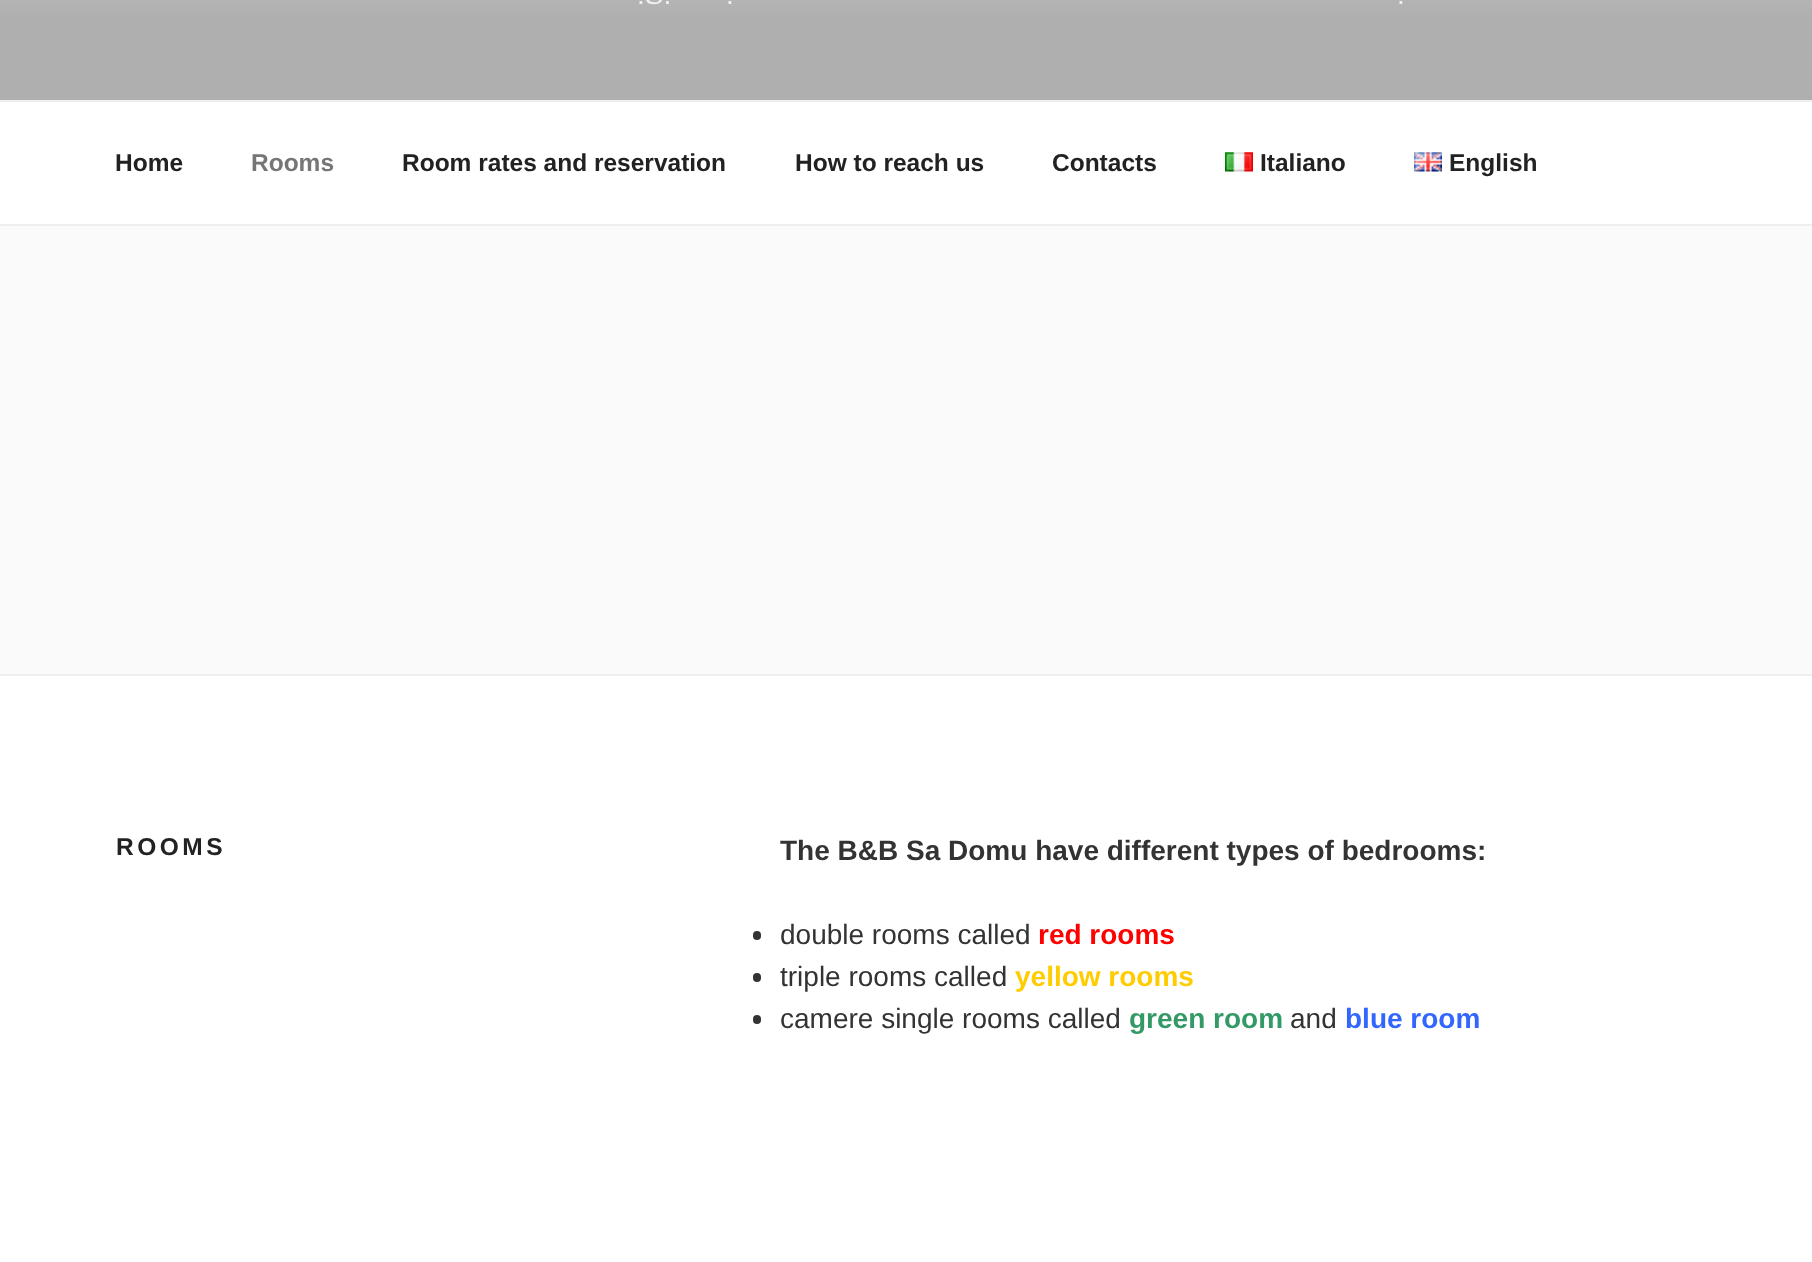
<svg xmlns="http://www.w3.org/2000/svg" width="1812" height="1262">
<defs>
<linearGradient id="g1" gradientUnits="userSpaceOnUse" x1="907" y1="-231" x2="907" y2="100"><stop offset="0" stop-color="#f9f9f9"/><stop offset="0.75" stop-color="#afafaf"/><stop offset="1" stop-color="#afafaf"/></linearGradient>
</defs>
<rect width="100%" height="100%" fill="#fff"/>
<rect width="1812" height="100" fill="url(#g1)"/>
<text x="637" y="4" style="font-family:Liberation Sans;font-size:28px;fill:#f0f0f0">.S.</text>
<text x="726" y="4" style="font-family:Liberation Sans;font-size:28px;fill:#f0f0f0">.</text>
<text x="1397" y="4" style="font-family:Liberation Sans;font-size:28px;fill:#f0f0f0">.</text>
<rect y="100" width="1812" height="2" fill="#eee"/>
<rect y="224" width="1812" height="2" fill="#eee"/>
<text x="115" y="171" style="font-family:Liberation Sans;font-size:24.5px;font-weight:bold;fill:#222">Home</text>
<text x="251" y="171" style="font-family:Liberation Sans;font-size:24.5px;font-weight:bold;fill:#767676">Rooms</text>
<text x="402" y="171" style="font-family:Liberation Sans;font-size:24.5px;font-weight:bold;fill:#222">Room rates and reservation</text>
<text x="795" y="171" style="font-family:Liberation Sans;font-size:24.5px;font-weight:bold;fill:#222">How to reach us</text>
<text x="1052" y="171" style="font-family:Liberation Sans;font-size:24.5px;font-weight:bold;fill:#222">Contacts</text>
<image x="1225" y="152" width="28" height="20" href="media/1.png"/>
<text x="1260" y="171" style="font-family:Liberation Sans;font-size:24.5px;font-weight:bold;fill:#222">Italiano</text>
<image x="1414" y="152" width="28" height="20" href="media/2.png"/>
<text x="1449" y="171" style="font-family:Liberation Sans;font-size:24.5px;font-weight:bold;fill:#222">English</text>
<rect y="226" width="1812" height="448" fill="#fafafa"/>
<rect y="674" width="1812" height="2" fill="#eee"/>
<text x="116" y="855" style="font-family:Liberation Sans;font-size:24.5px;font-weight:bold;letter-spacing:3.5px;fill:#222">ROOMS</text>
<text x="780" y="860" style="font-family:Liberation Sans;font-size:28px;font-weight:bold;fill:#333">The B&amp;B Sa Domu have different types of bedrooms:</text>
<rect x="753" y="931" width="8" height="9" rx="4" fill="#333"/>
<text x="780" y="944" style="font-family:Liberation Sans;font-size:28px;fill:#333">double rooms called</text>
<text x="1038" y="944" style="font-family:Liberation Sans;font-size:28px;font-weight:bold;fill:#f00">red rooms</text>
<rect x="753" y="973" width="8" height="9" rx="4" fill="#333"/>
<text x="780" y="986" style="font-family:Liberation Sans;font-size:28px;fill:#333">triple rooms called</text>
<text x="1015" y="986" style="font-family:Liberation Sans;font-size:28px;font-weight:bold;fill:#fc0">yellow rooms</text>
<rect x="753" y="1015" width="8" height="9" rx="4" fill="#333"/>
<text x="780" y="1028" style="font-family:Liberation Sans;font-size:28px;fill:#333">camere single rooms called</text>
<text x="1129" y="1028" style="font-family:Liberation Sans;font-size:28px;font-weight:bold;fill:#396">green room</text>
<text x="1290" y="1028" style="font-family:Liberation Sans;font-size:28px;fill:#333">and</text>
<text x="1345" y="1028" style="font-family:Liberation Sans;font-size:28px;font-weight:bold;fill:#36f">blue room</text>
</svg>
